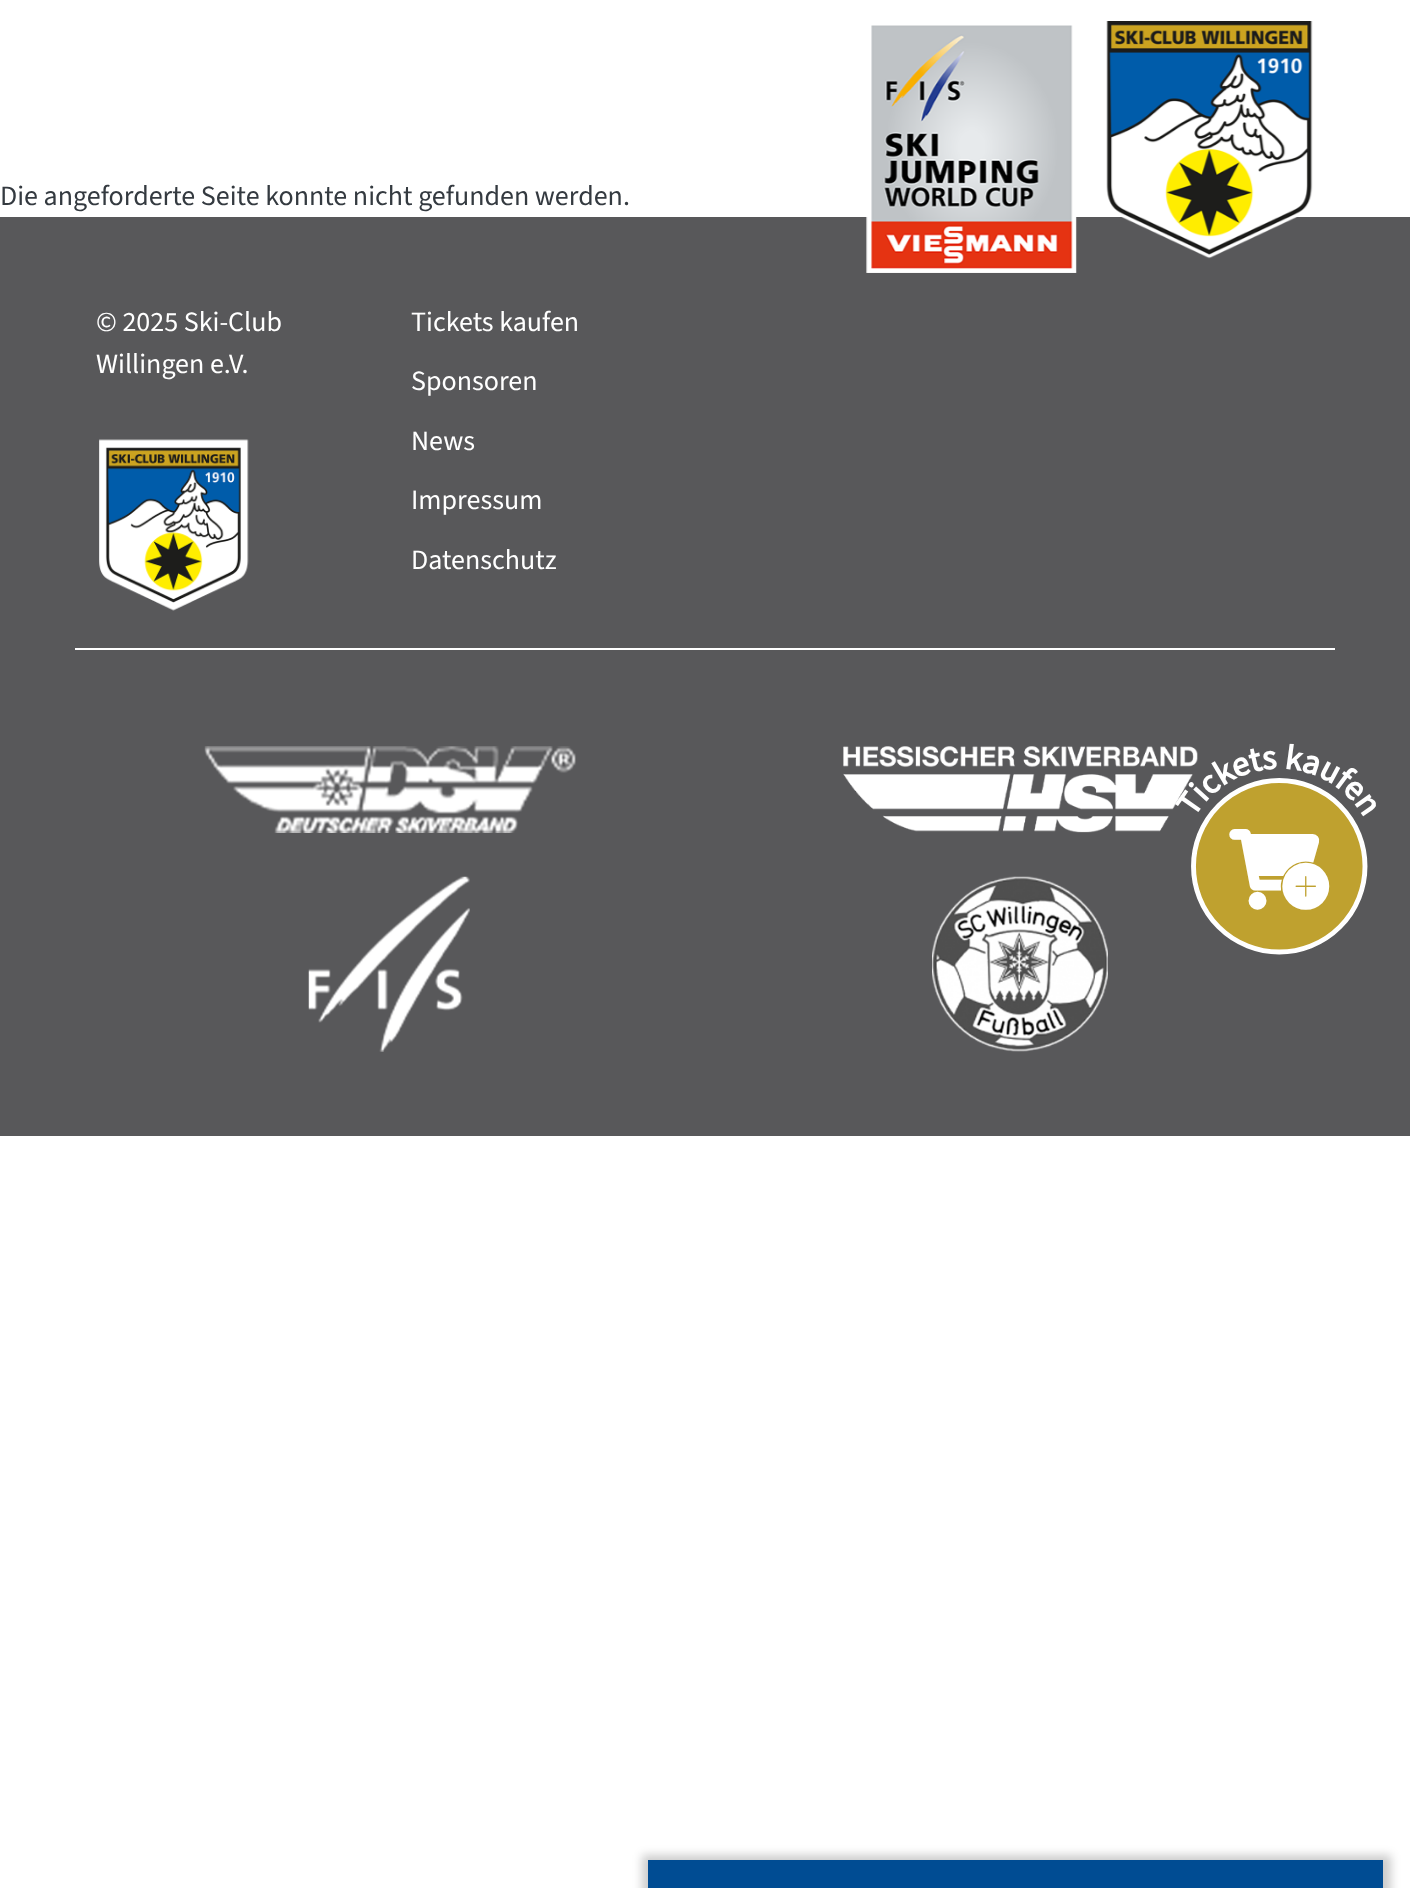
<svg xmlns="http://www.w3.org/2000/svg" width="1410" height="1888">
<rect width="100%" height="100%" fill="#fff"/>
<text x="0" y="205" style="font-family:'Source Sans 3';font-size:28px;fill:#343a40">Die angeforderte Seite konnte nicht gefunden werden.</text>
<rect x="642" y="1855" width="749" height="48" fill="#00000033" filter="blur(5px)"/>
<rect x="648" y="1860" width="735" height="28" fill="#004c93"/>
<rect y="217" width="1410" height="919" fill="#58585a"/>
<image x="866" y="25" width="211" height="248" href="media/1.png"/>
<image x="1106" y="21" width="207" height="238" href="media/2.png"/>
<image x="843" y="746" width="355" height="87" href="media/6.png"/>
<image x="1175" y="743" width="201" height="212" href="media/3.png"/>
<rect x="75" y="648" width="1260" height="2" fill="#fff"/>
<text x="96" y="331" style="font-family:'Source Sans 3';font-size:28px;fill:#fff">© 2025 Ski-Club</text>
<text x="96" y="373" style="font-family:'Source Sans 3';font-size:28px;fill:#fff">Willingen e.V.</text>
<image x="99" y="439" width="150" height="172" href="media/4.png"/>
<text x="411" y="331" style="font-family:'Source Sans 3';font-size:28px;fill:#fff">Tickets kaufen</text>
<text x="411" y="390" style="font-family:'Source Sans 3';font-size:28px;fill:#fff">Sponsoren</text>
<text x="411" y="450" style="font-family:'Source Sans 3';font-size:28px;fill:#fff">News</text>
<text x="411" y="509" style="font-family:'Source Sans 3';font-size:28px;fill:#fff">Impressum</text>
<text x="411" y="569" style="font-family:'Source Sans 3';font-size:28px;fill:#fff">Datenschutz</text>
<image x="204" y="746" width="372" height="87" href="media/5.png"/>
<image x="308" y="876" width="162" height="176" href="media/7.png"/>
<image x="932" y="876" width="176" height="176" href="media/8.png"/>
</svg>
